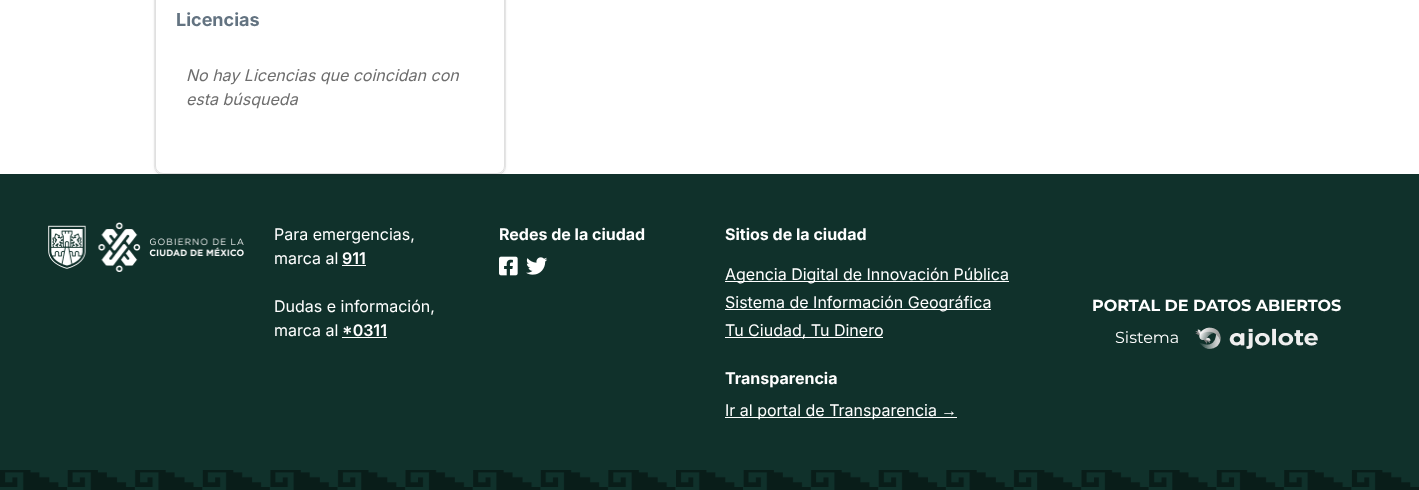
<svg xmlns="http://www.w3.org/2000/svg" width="1419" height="490">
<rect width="100%" height="100%" fill="#fff"/>
<rect y="174" width="1419" height="316" fill="#10312b"/>
<rect x="155" y="-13" width="350" height="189" rx="8" fill="#1a1a1a1a" filter="blur(1.5px)"/>
<rect x="154.4" y="-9.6" width="351.2" height="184.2" rx="8.6" fill="none" stroke="#1a1a1a1a" stroke-width="0.8"/>
<rect x="155" y="-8" width="350" height="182" rx="8" fill="#fff"/>
<rect x="155.5" y="-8.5" width="349" height="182" rx="7.5" fill="none" stroke="#0000001f"/>
<text x="176" y="26" style="font-family:Inter;font-size:18px;font-weight:bold;fill:#637381">Licencias</text>
<text x="186" y="81" style="font-family:Inter;font-size:16px;font-style:italic;fill:#6e6e6e">No hay Licencias que coincidan con</text>
<text x="186" y="105" style="font-family:Inter;font-size:16px;font-style:italic;fill:#6e6e6e">esta búsqueda</text>
<image x="48" y="222" width="196" height="50" href="media/1.png"/>
<text x="274" y="240" style="font-family:Inter;font-size:16px;fill:#fff">Para emergencias,</text>
<text x="274" y="264" style="font-family:Inter;font-size:16px;fill:#fff">marca al</text>
<text x="342" y="264" style="font-family:Inter;font-size:16px;font-weight:600;fill:#fff">911</text>
<rect x="342" y="265" width="24" height="1" fill="#fff"/>
<text x="274" y="312" style="font-family:Inter;font-size:16px;fill:#fff">Dudas e información,</text>
<text x="274" y="336" style="font-family:Inter;font-size:16px;fill:#fff">marca al</text>
<text x="342" y="336" style="font-family:Inter;font-size:16px;font-weight:600;fill:#fff">*0311</text>
<rect x="342" y="337" width="45" height="1" fill="#fff"/>
<text x="499" y="240" style="font-family:Inter;font-size:16px;font-weight:bold;fill:#fff">Redes de la ciudad</text>
<image x="499" y="256" width="19" height="20" href="media/2.png"/>
<image x="526" y="257" width="22" height="18" href="media/3.png"/>
<text x="725" y="240" style="font-family:Inter;font-size:16px;font-weight:bold;fill:#fff">Sitios de la ciudad</text>
<rect x="725" y="281" width="284" height="1" fill="#fff"/>
<text x="725" y="280" style="font-family:Inter;font-size:16px;fill:#fff">Agencia Digital de Innovación Pública</text>
<rect x="725" y="309" width="266" height="1" fill="#fff"/>
<text x="725" y="308" style="font-family:Inter;font-size:16px;fill:#fff">Sistema de Información Geográfica</text>
<rect x="725" y="337" width="158" height="1" fill="#fff"/>
<text x="725" y="336" style="font-family:Inter;font-size:16px;fill:#fff">Tu Ciudad, Tu Dinero</text>
<text x="725" y="384" style="font-family:Inter;font-size:16px;font-weight:bold;fill:#fff">Transparencia</text>
<rect x="725" y="417" width="232" height="1" fill="#fff"/>
<text x="725" y="416" style="font-family:Inter;font-size:16px;fill:#fff">Ir al portal de Transparencia</text>
<text x="941" y="416" style="font-family:Liberation Sans;font-size:16px;fill:#fff">→</text>
<text x="1092" y="311" style="font-family:Montserrat;font-size:16px;font-weight:bold;fill:#fff">PORTAL DE DATOS ABIERTOS</text>
<text x="1115" y="343" style="font-family:Montserrat;font-size:16px;fill:#fff">Sistema</text>
<image x="1195" y="327" width="26" height="22" href="media/4.png"/>
<image x="1229" y="328" width="89" height="21" href="media/5.png"/>
<image x="0" y="470" width="1419" height="20" href="media/6.png"/>
</svg>
